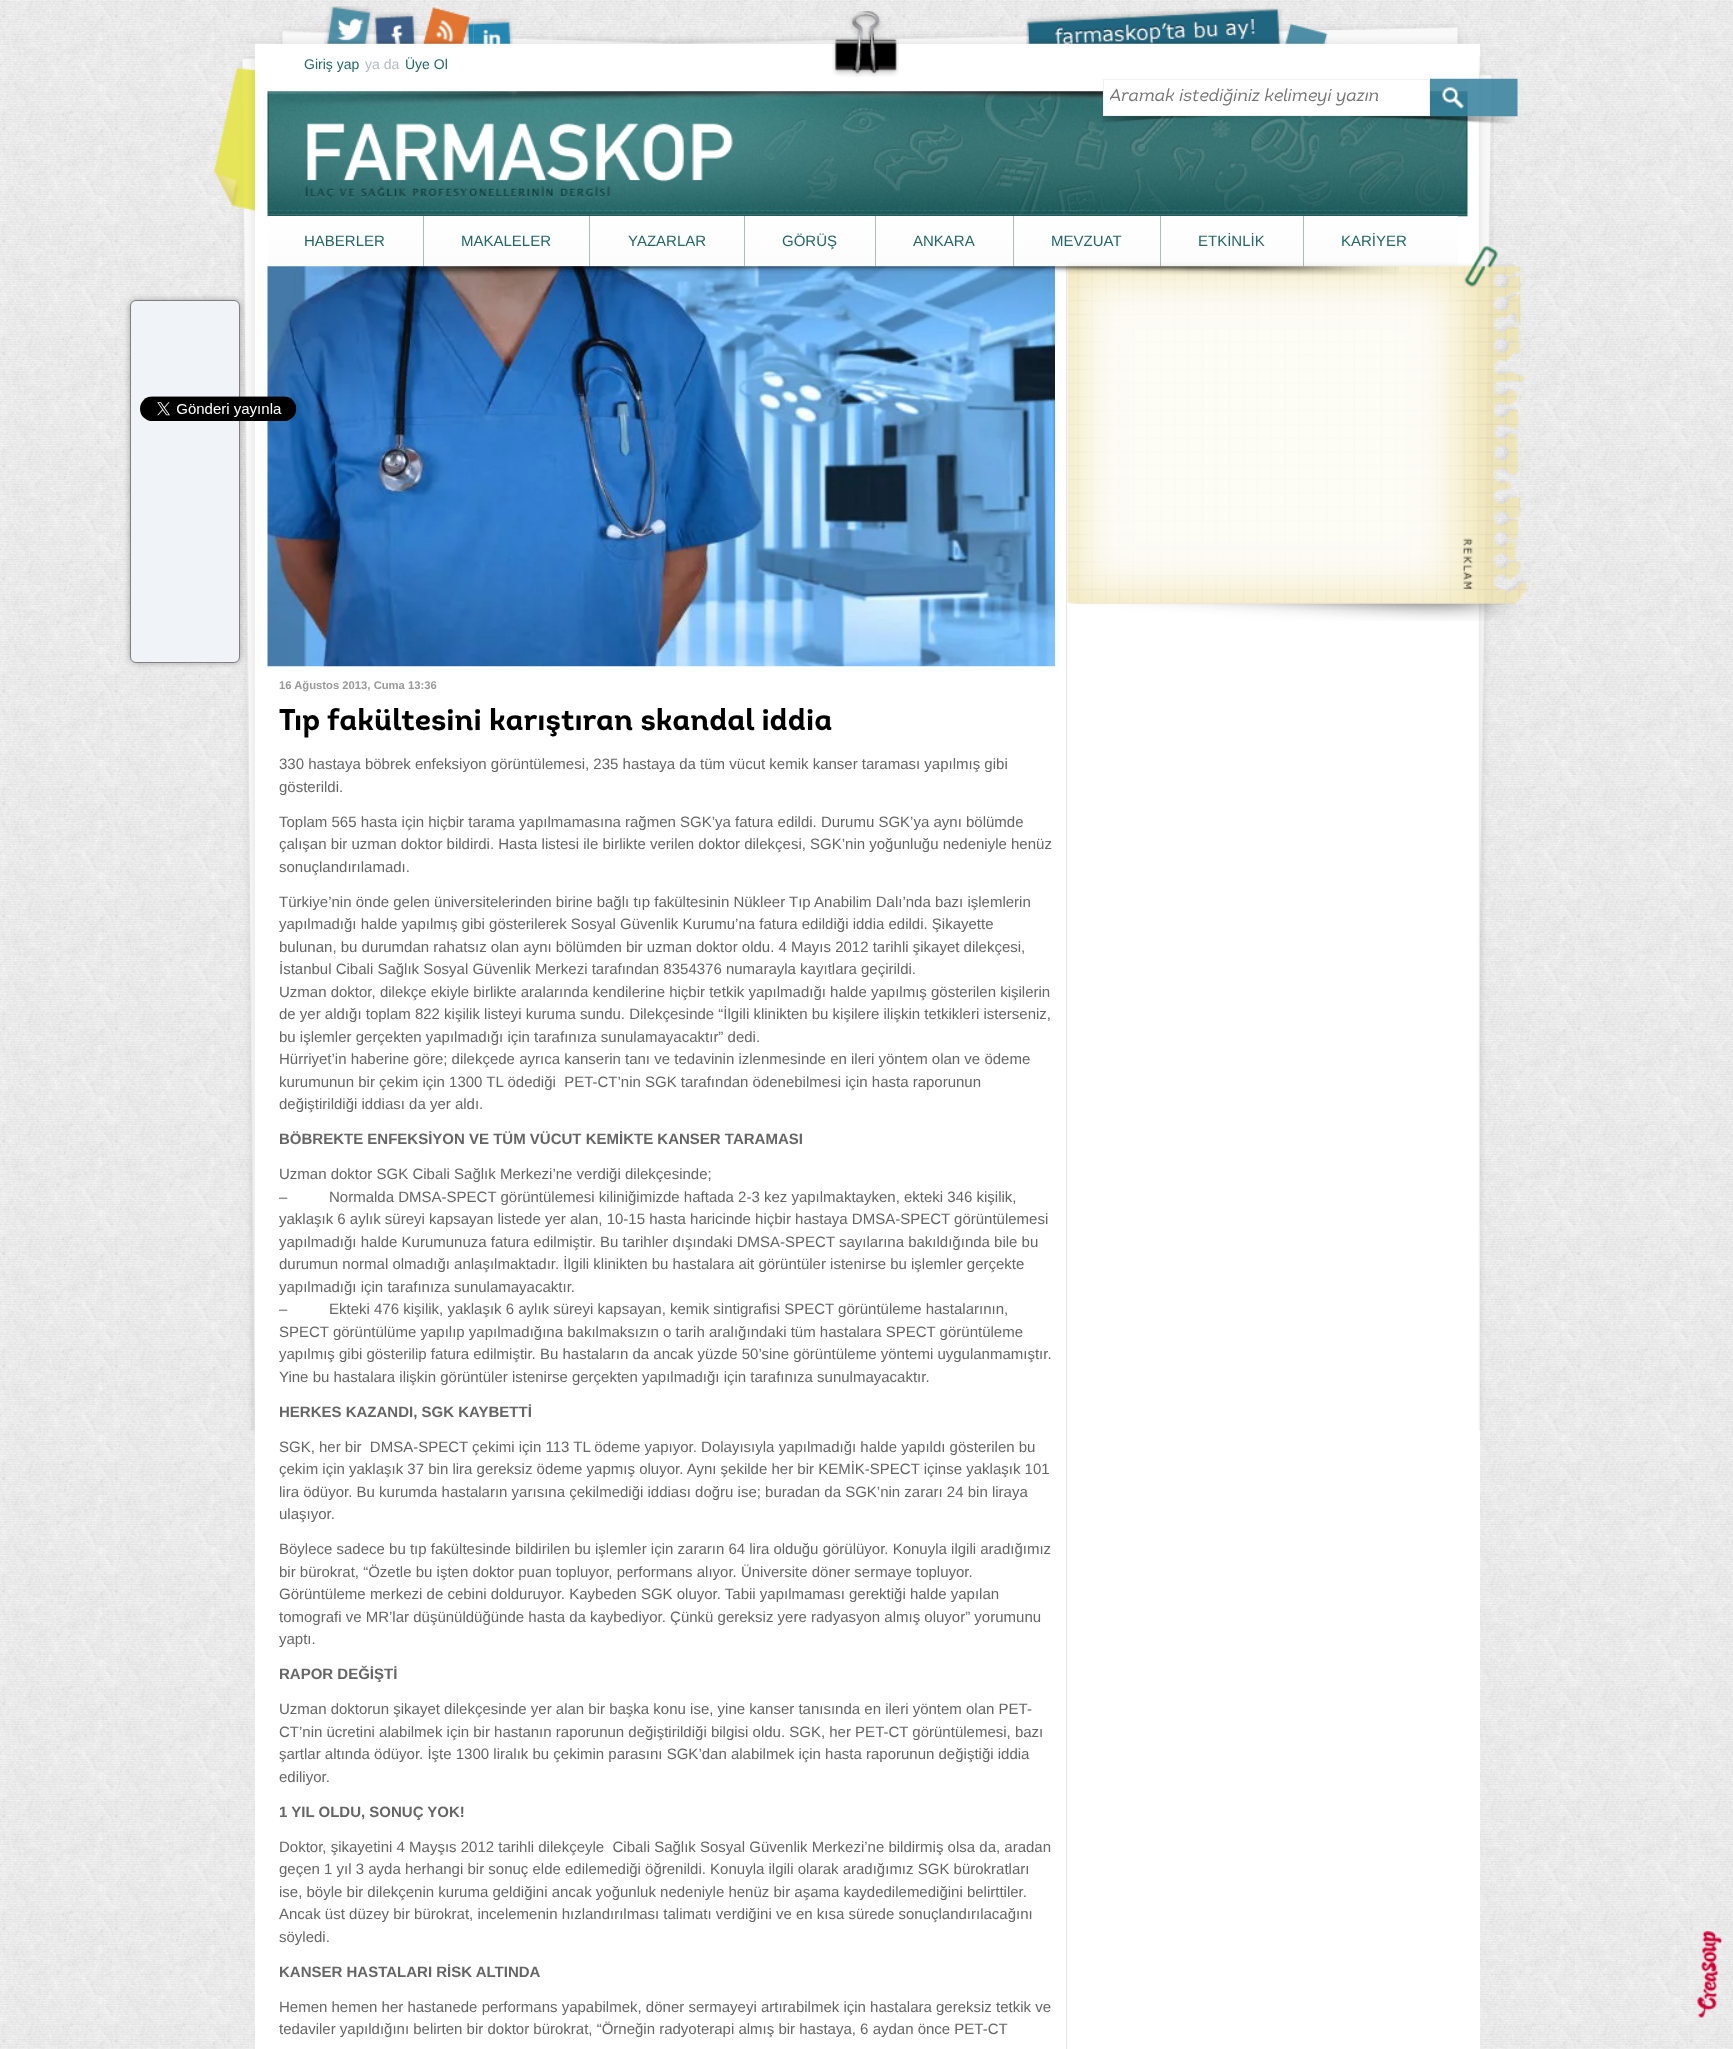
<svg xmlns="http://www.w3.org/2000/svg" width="1733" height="2049">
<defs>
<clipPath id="clip1"><rect x="1110" y="88" width="313" height="18"/></clipPath>
<linearGradient id="g1" gradientUnits="userSpaceOnUse" x1="346" y1="216" x2="346" y2="266"><stop offset="0" stop-color="#fff"/><stop offset="1" stop-color="#fcfcfc"/></linearGradient>
<linearGradient id="g2" gradientUnits="userSpaceOnUse" x1="507" y1="216" x2="507" y2="266"><stop offset="0" stop-color="#fff"/><stop offset="1" stop-color="#fcfcfc"/></linearGradient>
<linearGradient id="g3" gradientUnits="userSpaceOnUse" x1="668" y1="216" x2="668" y2="266"><stop offset="0" stop-color="#fff"/><stop offset="1" stop-color="#fcfcfc"/></linearGradient>
<linearGradient id="g4" gradientUnits="userSpaceOnUse" x1="811" y1="216" x2="811" y2="266"><stop offset="0" stop-color="#fff"/><stop offset="1" stop-color="#fcfcfc"/></linearGradient>
<linearGradient id="g5" gradientUnits="userSpaceOnUse" x1="945" y1="216" x2="945" y2="266"><stop offset="0" stop-color="#fff"/><stop offset="1" stop-color="#fcfcfc"/></linearGradient>
<linearGradient id="g6" gradientUnits="userSpaceOnUse" x1="1088" y1="216" x2="1088" y2="266"><stop offset="0" stop-color="#fff"/><stop offset="1" stop-color="#fcfcfc"/></linearGradient>
<linearGradient id="g7" gradientUnits="userSpaceOnUse" x1="1233" y1="216" x2="1233" y2="266"><stop offset="0" stop-color="#fff"/><stop offset="1" stop-color="#fcfcfc"/></linearGradient>
<linearGradient id="g8" gradientUnits="userSpaceOnUse" x1="1381" y1="216" x2="1381" y2="266"><stop offset="0" stop-color="#fff"/><stop offset="1" stop-color="#fcfcfc"/></linearGradient>
</defs>
<rect width="100%" height="100%" fill="#fff"/>
<image x="0" y="0" width="1733" height="2049" href="media/1.png"/>
<rect x="255" y="44" width="1225" height="2005" fill="#fff"/>
<image x="246" y="24" width="1223" height="20" href="media/8.png"/>
<image x="324" y="6" width="50" height="38" href="media/2.png"/>
<image x="373" y="12" width="51" height="32" href="media/3.png"/>
<image x="423" y="7" width="51" height="37" href="media/4.png"/>
<image x="473" y="18" width="40" height="26" href="media/5.png"/>
<image x="832" y="11" width="67" height="66" href="media/6.png"/>
<image x="1026" y="8" width="302" height="36" href="media/7.png"/>
<image x="213" y="56" width="42" height="1376" href="media/9.png"/>
<text x="304" y="69" style="font-family:Liberation Sans;font-size:14px;fill:#236767">Giriş yap</text>
<text x="365" y="69" style="font-family:Liberation Sans;font-size:14px;fill:#b2bcc0">ya da</text>
<text x="405" y="69" style="font-family:Liberation Sans;font-size:14px;fill:#236767">Üye Ol</text>
<image x="1478" y="56" width="16" height="1375" href="media/10.png"/>
<image x="267" y="91" width="1201" height="126" href="media/11.png"/>
<rect x="1104" y="91" width="325" height="24" fill="#fff"/>
<rect x="1103.5" y="79.5" width="326" height="36" fill="none" stroke="#f1f1f1"/>
<g clip-path="url(#clip1)">
<text x="1109" y="101" style="font-family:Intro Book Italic;font-size:17.5px;font-style:italic;fill:#757575">Aramak istediğiniz kelimeyi yazın</text>
</g>
<image x="1430" y="78" width="88" height="39" href="media/12.png"/>
<image x="1102" y="116" width="413" height="8" href="media/13.png"/>
<image x="305" y="123" width="428" height="77" href="media/14.png"/>
<rect x="268" y="216" width="155" height="50" fill="url(#g1)"/>
<rect x="423" y="216" width="1" height="50" fill="#b0bbbf"/>
<text x="304" y="246" style="font-family:Liberation Sans;font-size:15px;fill:#236767">HABERLER</text>
<rect x="424" y="216" width="165" height="50" fill="url(#g2)"/>
<rect x="589" y="216" width="1" height="50" fill="#b0bbbf"/>
<text x="461" y="246" style="font-family:Liberation Sans;font-size:15px;fill:#236767">MAKALELER</text>
<rect x="590" y="216" width="154" height="50" fill="url(#g3)"/>
<rect x="744" y="216" width="1" height="50" fill="#b0bbbf"/>
<text x="628" y="246" style="font-family:Liberation Sans;font-size:15px;fill:#236767">YAZARLAR</text>
<rect x="745" y="216" width="130" height="50" fill="url(#g4)"/>
<rect x="875" y="216" width="1" height="50" fill="#b0bbbf"/>
<text x="782" y="246" style="font-family:Liberation Sans;font-size:15px;fill:#236767">GÖRÜŞ</text>
<rect x="876" y="216" width="137" height="50" fill="url(#g5)"/>
<rect x="1013" y="216" width="1" height="50" fill="#b0bbbf"/>
<text x="913" y="246" style="font-family:Liberation Sans;font-size:15px;fill:#236767">ANKARA</text>
<rect x="1014" y="216" width="146" height="50" fill="url(#g6)"/>
<rect x="1160" y="216" width="1" height="50" fill="#b0bbbf"/>
<text x="1051" y="246" style="font-family:Liberation Sans;font-size:15px;fill:#236767">MEVZUAT</text>
<rect x="1161" y="216" width="142" height="50" fill="url(#g7)"/>
<rect x="1303" y="216" width="1" height="50" fill="#b0bbbf"/>
<text x="1198" y="246" style="font-family:Liberation Sans;font-size:15px;fill:#236767">ETKİNLİK</text>
<rect x="1304" y="216" width="154" height="50" fill="url(#g8)"/>
<text x="1341" y="246" style="font-family:Liberation Sans;font-size:15px;fill:#236767">KARİYER</text>
<image x="1067" y="245" width="460" height="376" href="media/16.png"/>
<rect x="1066" y="266" width="1" height="1783" fill="#e4e8e9"/>
<image x="267" y="266" width="788" height="401" href="media/18.png"/>
<image x="308" y="266" width="1091" height="10" href="media/15.png"/>
<rect x="130" y="300" width="110" height="363" rx="6" fill="#0000004d" filter="blur(3px)"/>
<rect x="130.5" y="300.5" width="109" height="362" rx="5.5" fill="#f0f4f9" stroke="#808080"/>
<image x="140" y="396" width="157" height="25" href="media/17.png"/>
<text x="279" y="689" style="font-family:Liberation Sans;font-size:11.25px;font-weight:bold;fill:#999">16 Ağustos 2013, Cuma 13:36</text>
<text x="279" y="730" style="font-family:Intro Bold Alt;font-size:30px;font-weight:bold;fill:#000">Tıp fakültesini karıştıran skandal iddia</text>
<text x="279" y="769" style="font-family:Liberation Sans;font-size:15px;fill:#666">330 hastaya böbrek enfeksiyon görüntülemesi, 235 hastaya da tüm vücut kemik kanser taraması yapılmış gibi</text>
<text x="279" y="792" style="font-family:Liberation Sans;font-size:15px;fill:#666">gösterildi.</text>
<text x="279" y="827" style="font-family:Liberation Sans;font-size:15px;fill:#666">Toplam 565 hasta için hiçbir tarama yapılmamasına rağmen SGK’ya fatura edildi. Durumu SGK’ya aynı bölümde</text>
<text x="279" y="849" style="font-family:Liberation Sans;font-size:15px;fill:#666">çalışan bir uzman doktor bildirdi. Hasta listesi ile birlikte verilen doktor dilekçesi, SGK’nin yoğunluğu nedeniyle henüz</text>
<text x="279" y="872" style="font-family:Liberation Sans;font-size:15px;fill:#666">sonuçlandırılamadı.</text>
<text x="279" y="907" style="font-family:Liberation Sans;font-size:15px;fill:#666">Türkiye’nin önde gelen üniversitelerinden birine bağlı tıp fakültesinin Nükleer Tıp Anabilim Dalı’nda bazı işlemlerin</text>
<text x="279" y="929" style="font-family:Liberation Sans;font-size:15px;fill:#666">yapılmadığı halde yapılmış gibi gösterilerek Sosyal Güvenlik Kurumu’na fatura edildiği iddia edildi. Şikayette</text>
<text x="279" y="952" style="font-family:Liberation Sans;font-size:15px;fill:#666">bulunan, bu durumdan rahatsız olan aynı bölümden bir uzman doktor oldu. 4 Mayıs 2012 tarihli şikayet dilekçesi,</text>
<text x="279" y="974" style="font-family:Liberation Sans;font-size:15px;fill:#666">İstanbul Cibali Sağlık Sosyal Güvenlik Merkezi tarafından 8354376 numarayla kayıtlara geçirildi.</text>
<text x="279" y="997" style="font-family:Liberation Sans;font-size:15px;fill:#666">Uzman doktor, dilekçe ekiyle birlikte aralarında kendilerine hiçbir tetkik yapılmadığı halde yapılmış gösterilen kişilerin</text>
<text x="279" y="1019" style="font-family:Liberation Sans;font-size:15px;fill:#666">de yer aldığı toplam 822 kişilik listeyi kuruma sundu. Dilekçesinde “İlgili klinikten bu kişilere ilişkin tetkikleri isterseniz,</text>
<text x="279" y="1042" style="font-family:Liberation Sans;font-size:15px;fill:#666">bu işlemler gerçekten yapılmadığı için tarafınıza sunulamayacaktır” dedi.</text>
<text x="279" y="1064" style="font-family:Liberation Sans;font-size:15px;fill:#666">Hürriyet’in haberine göre; dilekçede ayrıca kanserin tanı ve tedavinin izlenmesinde en ileri yöntem olan ve ödeme</text>
<text x="279" y="1087" style="font-family:Liberation Sans;font-size:15px;fill:#666" xml:space="preserve">kurumunun bir çekim için 1300 TL ödediği  PET-CT’nin SGK tarafından ödenebilmesi için hasta raporunun</text>
<text x="279" y="1109" style="font-family:Liberation Sans;font-size:15px;fill:#666">değiştirildiği iddiası da yer aldı.</text>
<text x="279" y="1144" style="font-family:Liberation Sans;font-size:15px;font-weight:bold;fill:#666">BÖBREKTE ENFEKSİYON VE TÜM VÜCUT KEMİKTE KANSER TARAMASI</text>
<text x="279" y="1179" style="font-family:Liberation Sans;font-size:15px;fill:#666">Uzman doktor SGK Cibali Sağlık Merkezi’ne verdiği dilekçesinde;</text>
<text x="279" y="1202" style="font-family:Liberation Sans;font-size:15px;fill:#666" xml:space="preserve">–          Normalda DMSA-SPECT görüntülemesi kiliniğimizde haftada 2-3 kez yapılmaktayken, ekteki 346 kişilik,</text>
<text x="279" y="1224" style="font-family:Liberation Sans;font-size:15px;fill:#666">yaklaşık 6 aylık süreyi kapsayan listede yer alan, 10-15 hasta haricinde hiçbir hastaya DMSA-SPECT görüntülemesi</text>
<text x="279" y="1247" style="font-family:Liberation Sans;font-size:15px;fill:#666">yapılmadığı halde Kurumunuza fatura edilmiştir. Bu tarihler dışındaki DMSA-SPECT sayılarına bakıldığında bile bu</text>
<text x="279" y="1269" style="font-family:Liberation Sans;font-size:15px;fill:#666">durumun normal olmadığı anlaşılmaktadır. İlgili klinikten bu hastalara ait görüntüler istenirse bu işlemler gerçekte</text>
<text x="279" y="1292" style="font-family:Liberation Sans;font-size:15px;fill:#666">yapılmadığı için tarafınıza sunulamayacaktır.</text>
<text x="279" y="1314" style="font-family:Liberation Sans;font-size:15px;fill:#666" xml:space="preserve">–          Ekteki 476 kişilik, yaklaşık 6 aylık süreyi kapsayan, kemik sintigrafisi SPECT görüntüleme hastalarının,</text>
<text x="279" y="1337" style="font-family:Liberation Sans;font-size:15px;fill:#666">SPECT görüntülüme yapılıp yapılmadığına bakılmaksızın o tarih aralığındaki tüm hastalara SPECT görüntüleme</text>
<text x="279" y="1359" style="font-family:Liberation Sans;font-size:15px;fill:#666">yapılmış gibi gösterilip fatura edilmiştir. Bu hastaların da ancak yüzde 50’sine görüntüleme yöntemi uygulanmamıştır.</text>
<text x="279" y="1382" style="font-family:Liberation Sans;font-size:15px;fill:#666">Yine bu hastalara ilişkin görüntüler istenirse gerçekten yapılmadığı için tarafınıza sunulmayacaktır.</text>
<text x="279" y="1417" style="font-family:Liberation Sans;font-size:15px;font-weight:bold;fill:#666">HERKES KAZANDI, SGK KAYBETTİ</text>
<text x="279" y="1452" style="font-family:Liberation Sans;font-size:15px;fill:#666" xml:space="preserve">SGK, her bir  DMSA-SPECT çekimi için 113 TL ödeme yapıyor. Dolayısıyla yapılmadığı halde yapıldı gösterilen bu</text>
<text x="279" y="1474" style="font-family:Liberation Sans;font-size:15px;fill:#666">çekim için yaklaşık 37 bin lira gereksiz ödeme yapmış oluyor. Aynı şekilde her bir KEMİK-SPECT içinse yaklaşık 101</text>
<text x="279" y="1497" style="font-family:Liberation Sans;font-size:15px;fill:#666">lira ödüyor. Bu kurumda hastaların yarısına çekilmediği iddiası doğru ise; buradan da SGK’nin zararı 24 bin liraya</text>
<text x="279" y="1519" style="font-family:Liberation Sans;font-size:15px;fill:#666">ulaşıyor.</text>
<text x="279" y="1554" style="font-family:Liberation Sans;font-size:15px;fill:#666">Böylece sadece bu tıp fakültesinde bildirilen bu işlemler için zararın 64 lira olduğu görülüyor. Konuyla ilgili aradığımız</text>
<text x="279" y="1577" style="font-family:Liberation Sans;font-size:15px;fill:#666">bir bürokrat, “Özetle bu işten doktor puan topluyor, performans alıyor. Üniversite döner sermaye topluyor.</text>
<text x="279" y="1599" style="font-family:Liberation Sans;font-size:15px;fill:#666">Görüntüleme merkezi de cebini dolduruyor. Kaybeden SGK oluyor. Tabii yapılmaması gerektiği halde yapılan</text>
<text x="279" y="1622" style="font-family:Liberation Sans;font-size:15px;fill:#666">tomografi ve MR’lar düşünüldüğünde hasta da kaybediyor. Çünkü gereksiz yere radyasyon almış oluyor” yorumunu</text>
<text x="279" y="1644" style="font-family:Liberation Sans;font-size:15px;fill:#666">yaptı.</text>
<text x="279" y="1679" style="font-family:Liberation Sans;font-size:15px;font-weight:bold;fill:#666">RAPOR DEĞİŞTİ</text>
<text x="279" y="1714" style="font-family:Liberation Sans;font-size:15px;fill:#666">Uzman doktorun şikayet dilekçesinde yer alan bir başka konu ise, yine kanser tanısında en ileri yöntem olan PET-</text>
<text x="279" y="1737" style="font-family:Liberation Sans;font-size:15px;fill:#666">CT’nin ücretini alabilmek için bir hastanın raporunun değiştirildiği bilgisi oldu. SGK, her PET-CT görüntülemesi, bazı</text>
<text x="279" y="1759" style="font-family:Liberation Sans;font-size:15px;fill:#666">şartlar altında ödüyor. İşte 1300 liralık bu çekimin parasını SGK’dan alabilmek için hasta raporunun değiştiği iddia</text>
<text x="279" y="1782" style="font-family:Liberation Sans;font-size:15px;fill:#666">ediliyor.</text>
<text x="279" y="1817" style="font-family:Liberation Sans;font-size:15px;font-weight:bold;fill:#666">1 YIL OLDU, SONUÇ YOK!</text>
<text x="279" y="1852" style="font-family:Liberation Sans;font-size:15px;fill:#666" xml:space="preserve">Doktor, şikayetini 4 Mayşıs 2012 tarihli dilekçeyle  Cibali Sağlık Sosyal Güvenlik Merkezi’ne bildirmiş olsa da, aradan</text>
<text x="279" y="1874" style="font-family:Liberation Sans;font-size:15px;fill:#666">geçen 1 yıl 3 ayda herhangi bir sonuç elde edilemediği öğrenildi. Konuyla ilgili olarak aradığımız SGK bürokratları</text>
<text x="279" y="1897" style="font-family:Liberation Sans;font-size:15px;fill:#666">ise, böyle bir dilekçenin kuruma geldiğini ancak yoğunluk nedeniyle henüz bir aşama kaydedilemediğini belirttiler.</text>
<text x="279" y="1919" style="font-family:Liberation Sans;font-size:15px;fill:#666">Ancak üst düzey bir bürokrat, incelemenin hızlandırılması talimatı verdiğini ve en kısa sürede sonuçlandırılacağını</text>
<text x="279" y="1942" style="font-family:Liberation Sans;font-size:15px;fill:#666">söyledi.</text>
<text x="279" y="1977" style="font-family:Liberation Sans;font-size:15px;font-weight:bold;fill:#666">KANSER HASTALARI RİSK ALTINDA</text>
<text x="279" y="2012" style="font-family:Liberation Sans;font-size:15px;fill:#666">Hemen hemen her hastanede performans yapabilmek, döner sermayeyi artırabilmek için hastalara gereksiz tetkik ve</text>
<text x="279" y="2034" style="font-family:Liberation Sans;font-size:15px;fill:#666">tedaviler yapıldığını belirten bir doktor bürokrat, “Örneğin radyoterapi almış bir hastaya, 6 aydan önce PET-CT</text>
<image x="1697" y="1931" width="25" height="88" href="media/19.png"/>
</svg>
